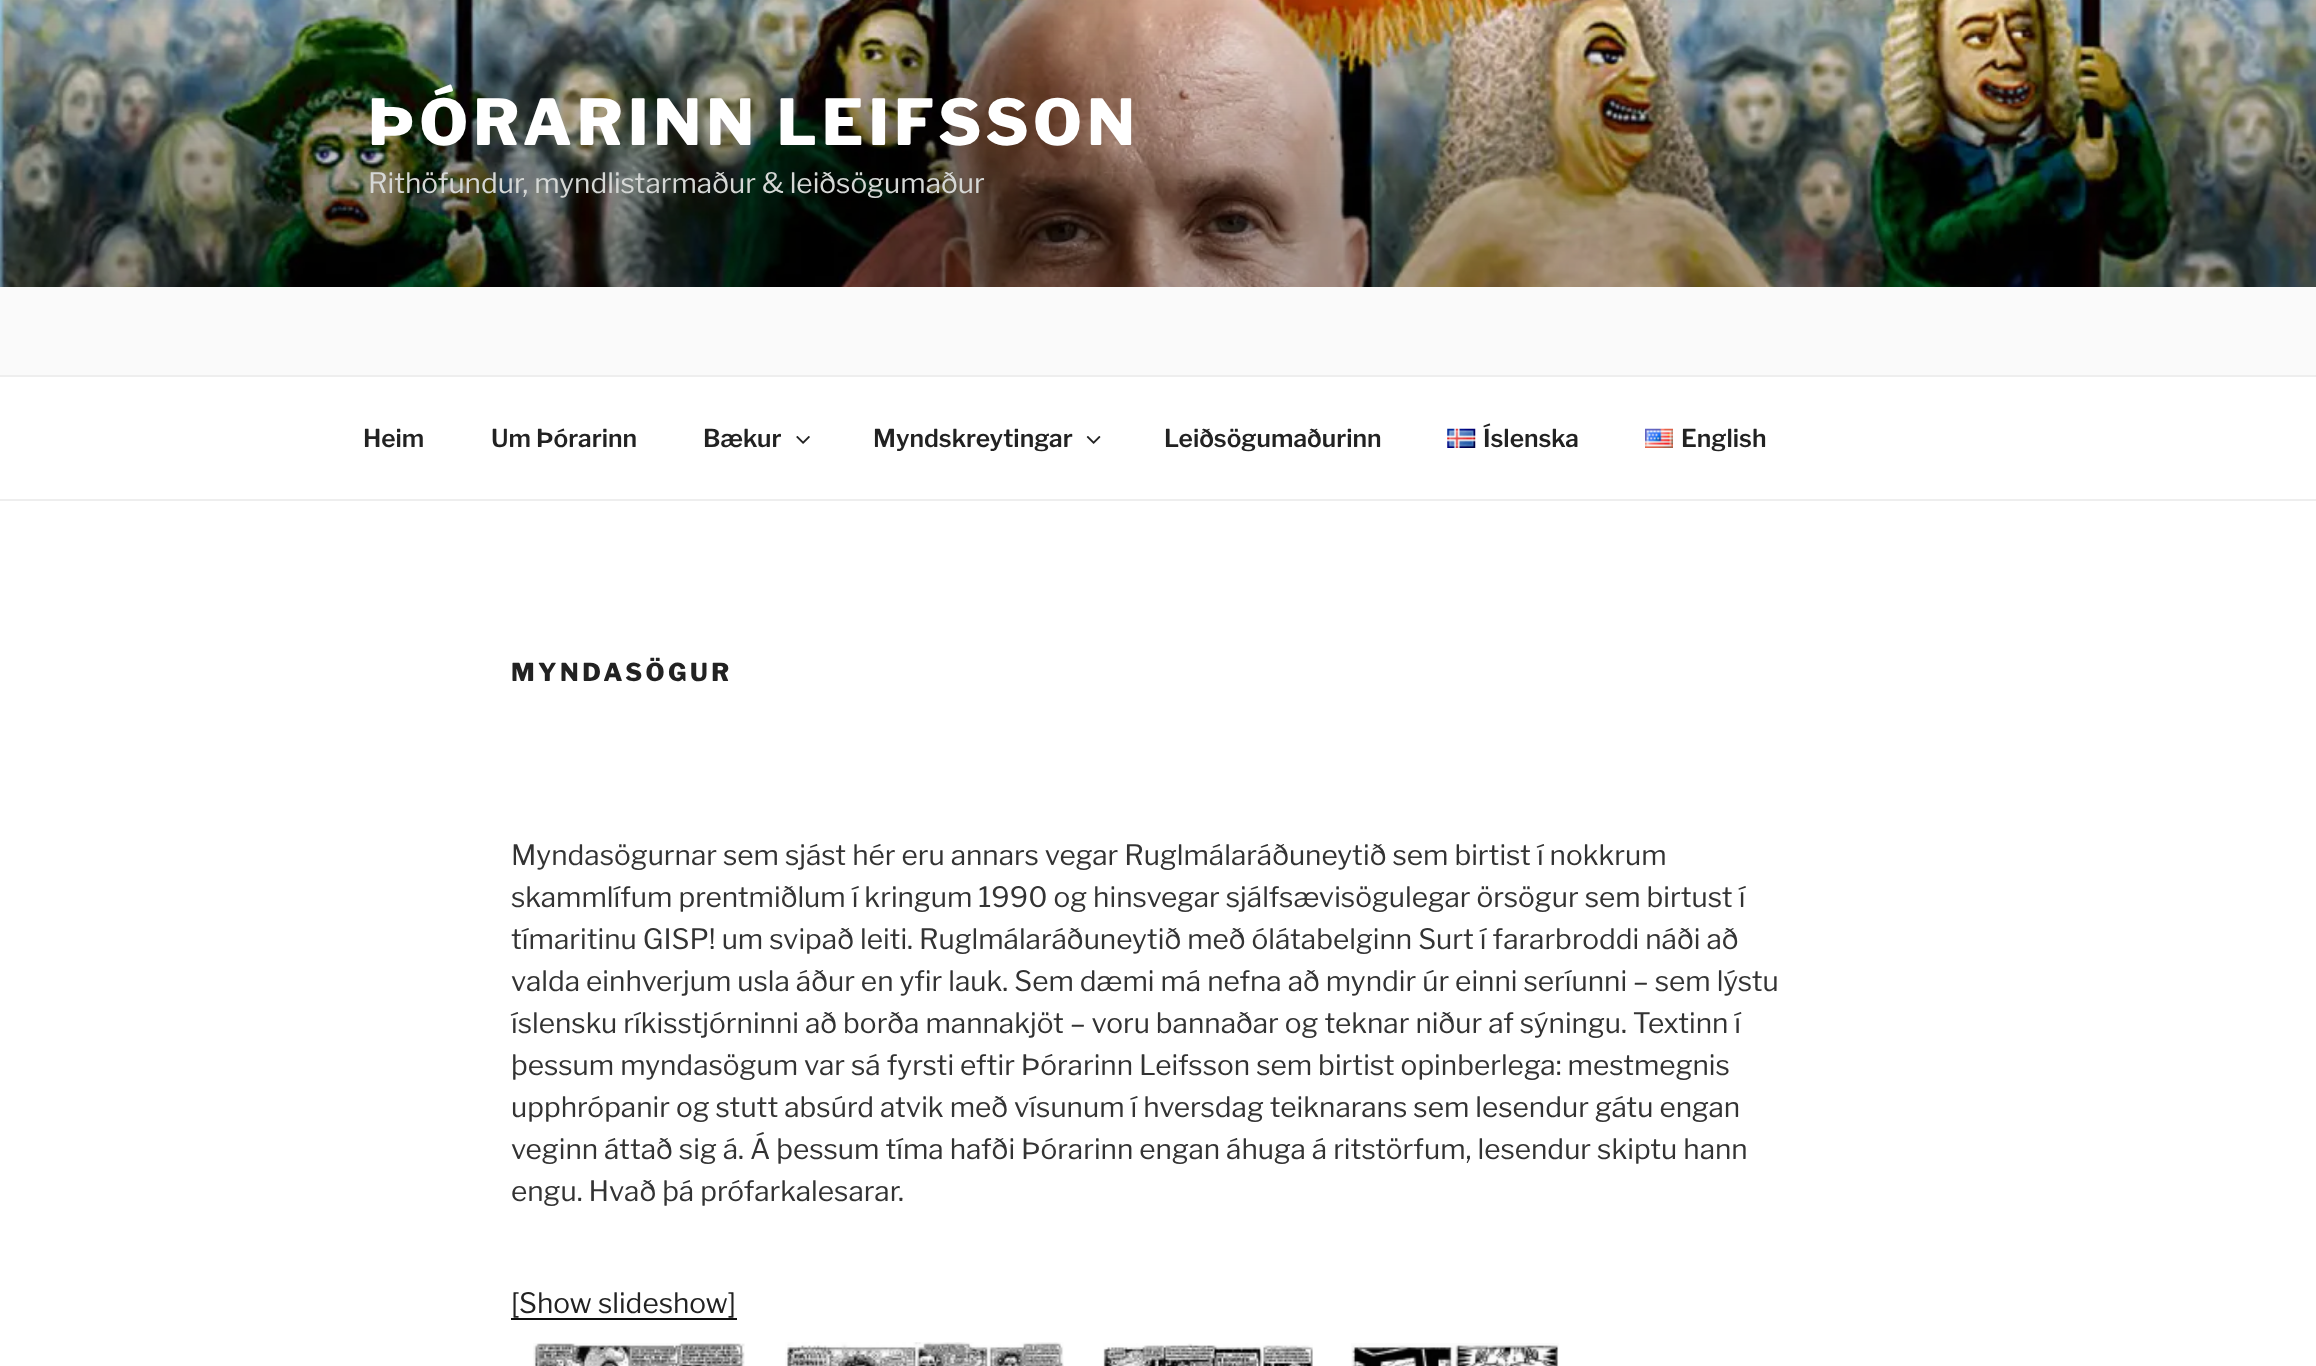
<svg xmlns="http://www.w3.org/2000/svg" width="2316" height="1366">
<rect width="100%" height="100%" fill="#fff"/>
<rect y="287" width="2316" height="88" fill="#fafafa"/>
<image x="0" y="0" width="2316" height="287" href="media/1.png"/>
<text x="368" y="145" style="font-family:Libre Franklin;font-size:63px;font-weight:100;letter-spacing:5px;fill:#fff">ÞÓRARINN LEIFSSON</text>
<text x="368" y="193" style="font-family:'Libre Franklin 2';font-size:28px;font-weight:100;fill:#d5d7d5">Rithöfundur, myndlistarmaður &amp; leiðsögumaður</text>
<rect y="375" width="2316" height="2" fill="#eee"/>
<rect y="499" width="2316" height="2" fill="#eee"/>
<text x="363" y="447" style="font-family:'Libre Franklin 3';font-size:24.5px;font-weight:100;fill:#222">Heim</text>
<text x="491" y="447" style="font-family:'Libre Franklin 3';font-size:24.5px;font-weight:100;fill:#222">Um Þórarinn</text>
<text x="703" y="447" style="font-family:'Libre Franklin 3';font-size:24.5px;font-weight:100;fill:#222">Bækur</text>
<image x="796" y="436" width="14" height="8" href="media/2.png"/>
<text x="873" y="447" style="font-family:'Libre Franklin 3';font-size:24.5px;font-weight:100;fill:#222">Myndskreytingar</text>
<image x="1086" y="436" width="15" height="8" href="media/3.png"/>
<text x="1164" y="447" style="font-family:'Libre Franklin 3';font-size:24.5px;font-weight:100;fill:#222">Leiðsögumaðurinn</text>
<image x="1447" y="428" width="29" height="20" href="media/4.png"/>
<text x="1483" y="447" style="font-family:'Libre Franklin 3';font-size:24.5px;font-weight:100;fill:#222">Íslenska</text>
<image x="1645" y="428" width="28" height="20" href="media/5.png"/>
<text x="1681" y="447" style="font-family:'Libre Franklin 3';font-size:24.5px;font-weight:100;fill:#222">English</text>
<text x="511" y="681" style="font-family:Libre Franklin;font-size:24.5px;font-weight:100;letter-spacing:3.5px;fill:#222">MYNDASÖGUR</text>
<text x="511" y="865" style="font-family:'Libre Franklin 2';font-size:28px;font-weight:100;fill:#333">Myndasögurnar sem sjást hér eru annars vegar Ruglmálaráðuneytið sem birtist í nokkrum</text>
<text x="511" y="907" style="font-family:'Libre Franklin 2';font-size:28px;font-weight:100;fill:#333">skammlífum prentmiðlum í kringum 1990 og hinsvegar sjálfsævisögulegar örsögur sem birtust í</text>
<text x="511" y="949" style="font-family:'Libre Franklin 2';font-size:28px;font-weight:100;fill:#333">tímaritinu GISP! um svipað leiti. Ruglmálaráðuneytið með ólátabelginn Surt í fararbroddi náði að</text>
<text x="511" y="991" style="font-family:'Libre Franklin 2';font-size:28px;font-weight:100;fill:#333">valda einhverjum usla áður en yfir lauk. Sem dæmi má nefna að myndir úr einni seríunni – sem lýstu</text>
<text x="511" y="1033" style="font-family:'Libre Franklin 2';font-size:28px;font-weight:100;fill:#333">íslensku ríkisstjórninni að borða mannakjöt – voru bannaðar og teknar niður af sýningu. Textinn í</text>
<text x="511" y="1075" style="font-family:'Libre Franklin 2';font-size:28px;font-weight:100;fill:#333">þessum myndasögum var sá fyrsti eftir Þórarinn Leifsson sem birtist opinberlega: mestmegnis</text>
<text x="511" y="1117" style="font-family:'Libre Franklin 2';font-size:28px;font-weight:100;fill:#333">upphrópanir og stutt absúrd atvik með vísunum í hversdag teiknarans sem lesendur gátu engan</text>
<text x="511" y="1159" style="font-family:'Libre Franklin 2';font-size:28px;font-weight:100;fill:#333">veginn áttað sig á. Á þessum tíma hafði Þórarinn engan áhuga á ritstörfum, lesendur skiptu hann</text>
<text x="511" y="1201" style="font-family:'Libre Franklin 2';font-size:28px;font-weight:100;fill:#333">engu. Hvað þá prófarkalesarar.</text>
<text x="511" y="1313" style="font-family:'Libre Franklin 2';font-size:28px;font-weight:100;fill:#222">[Show slideshow]</text>
<rect x="511" y="1318" width="226" height="2" fill="#0f0f0f"/>
<image x="533" y="1343" width="212" height="23" href="media/6.png"/>
<image x="785" y="1342" width="279" height="24" href="media/7.png"/>
<image x="1103" y="1343" width="210" height="23" href="media/8.png"/>
<image x="1351" y="1343" width="208" height="23" href="media/9.png"/>
</svg>
